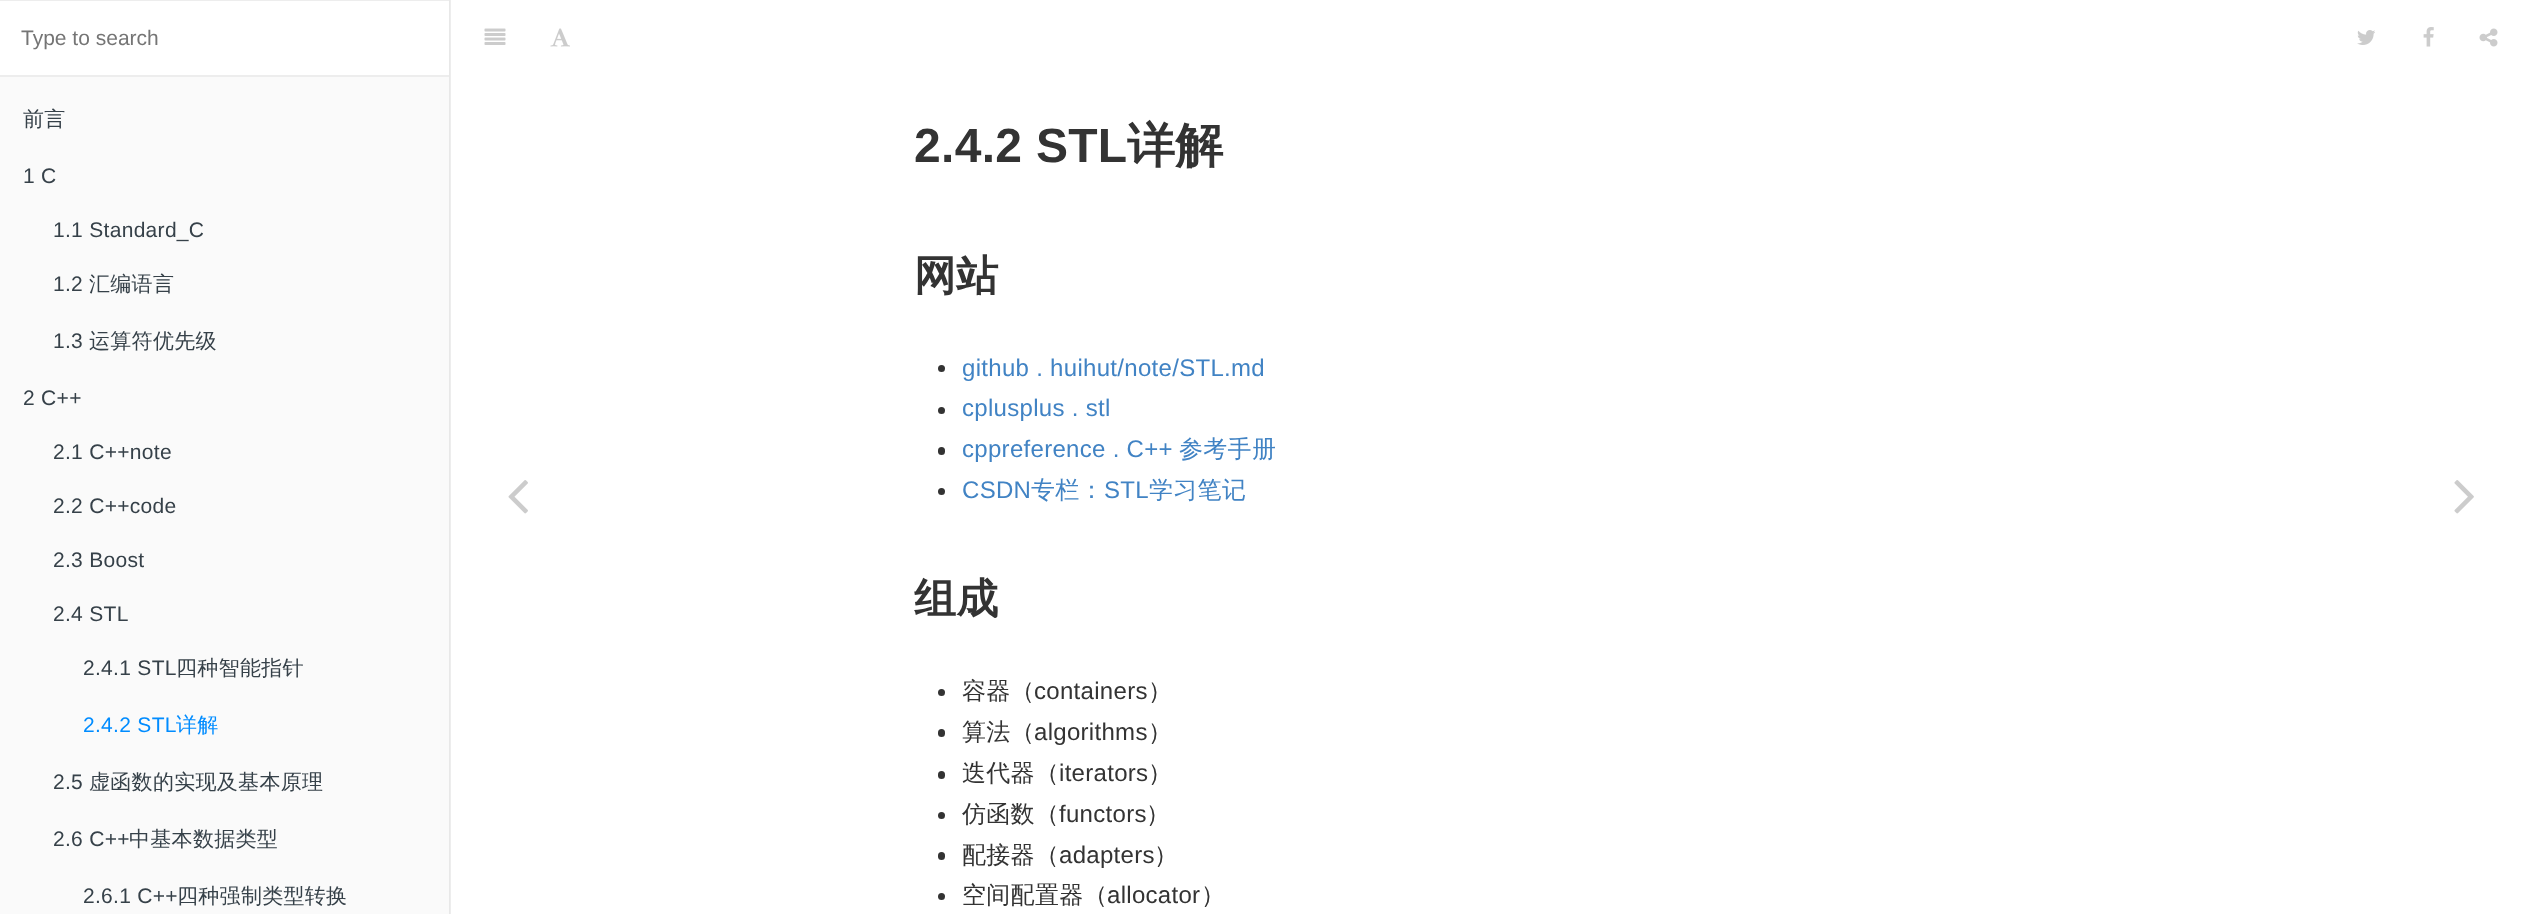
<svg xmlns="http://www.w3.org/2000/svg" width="2532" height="914">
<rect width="100%" height="100%" fill="#fff"/>
<rect x="450" width="1" height="914" fill="#ededed"/>
<rect y="77" width="449" height="837" fill="#fafafa"/>
<rect x="449" width="1" height="914" fill="#e8e8e8"/>
<rect width="449" height="1" fill="#ededed"/>
<rect y="75" width="449" height="2" fill="#ededed"/>
<text x="21" y="45" style="font-family:Liberation Sans;font-size:21px;fill:#757575">Type to search</text>
<text x="23" y="126" style="font-family:WenQuanYi Zen Hei;font-size:21px;font-weight:500;letter-spacing:0.3px;fill:#364149">前言</text>
<text x="23" y="183" style="font-family:Liberation Sans;font-size:21px;letter-spacing:0.3px;fill:#364149">1 C</text>
<text x="53" y="237" style="font-family:Liberation Sans;font-size:21px;letter-spacing:0.3px;fill:#364149">1.1 Standard_C</text>
<text x="53" y="291" style="font-family:Liberation Sans;font-size:21px;letter-spacing:0.3px;fill:#364149">1.2</text>
<text x="89" y="291" style="font-family:WenQuanYi Zen Hei;font-size:21px;font-weight:500;letter-spacing:0.3px;fill:#364149">汇编语言</text>
<text x="53" y="348" style="font-family:Liberation Sans;font-size:21px;letter-spacing:0.3px;fill:#364149">1.3</text>
<text x="89" y="348" style="font-family:WenQuanYi Zen Hei;font-size:21px;font-weight:500;letter-spacing:0.3px;fill:#364149">运算符优先级</text>
<text x="23" y="405" style="font-family:Liberation Sans;font-size:21px;letter-spacing:0.3px;fill:#364149">2 C++</text>
<text x="53" y="459" style="font-family:Liberation Sans;font-size:21px;letter-spacing:0.3px;fill:#364149">2.1 C++note</text>
<text x="53" y="513" style="font-family:Liberation Sans;font-size:21px;letter-spacing:0.3px;fill:#364149">2.2 C++code</text>
<text x="53" y="567" style="font-family:Liberation Sans;font-size:21px;letter-spacing:0.3px;fill:#364149">2.3 Boost</text>
<text x="53" y="621" style="font-family:Liberation Sans;font-size:21px;letter-spacing:0.3px;fill:#364149">2.4 STL</text>
<text x="83" y="675" style="font-family:Liberation Sans;font-size:21px;letter-spacing:0.3px;fill:#364149">2.4.1 STL</text>
<text x="176" y="675" style="font-family:WenQuanYi Zen Hei;font-size:21px;font-weight:500;letter-spacing:0.3px;fill:#364149">四种智能指针</text>
<text x="83" y="732" style="font-family:Liberation Sans;font-size:21px;letter-spacing:0.3px;fill:#008cff">2.4.2 STL</text>
<text x="176" y="732" style="font-family:WenQuanYi Zen Hei;font-size:21px;font-weight:500;letter-spacing:0.3px;fill:#008cff">详解</text>
<text x="53" y="789" style="font-family:Liberation Sans;font-size:21px;letter-spacing:0.3px;fill:#364149">2.5</text>
<text x="89" y="789" style="font-family:WenQuanYi Zen Hei;font-size:21px;font-weight:500;letter-spacing:0.3px;fill:#364149">虚函数的实现及基本原理</text>
<text x="53" y="846" style="font-family:Liberation Sans;font-size:21px;letter-spacing:0.3px;fill:#364149">2.6 C++</text>
<text x="129" y="846" style="font-family:WenQuanYi Zen Hei;font-size:21px;font-weight:500;letter-spacing:0.3px;fill:#364149">中基本数据类型</text>
<text x="83" y="903" style="font-family:Liberation Sans;font-size:21px;letter-spacing:0.3px;fill:#364149">2.6.1 C++</text>
<text x="177" y="903" style="font-family:WenQuanYi Zen Hei;font-size:21px;font-weight:500;letter-spacing:0.3px;fill:#364149">四种强制类型转换</text>
<image x="508" y="480" width="20" height="34" href="media/1.png"/>
<image x="484" y="28" width="22" height="17" href="media/2.png"/>
<image x="550" y="28" width="20" height="19" href="media/3.png"/>
<image x="2357" y="30" width="18" height="15" href="media/4.png"/>
<image x="2423" y="27" width="11" height="20" href="media/5.png"/>
<image x="2479" y="28" width="19" height="19" href="media/6.png"/>
<text x="914" y="162" style="font-family:Liberation Sans;font-size:48px;font-weight:bold;letter-spacing:0.3px;fill:#333">2.4.2 STL</text>
<text x="1127" y="162" style="font-family:WenQuanYi Zen Hei;font-size:48px;font-weight:bold;letter-spacing:0.3px;fill:#333">详解</text>
<text x="914" y="290" style="font-family:WenQuanYi Zen Hei;font-size:42px;font-weight:bold;letter-spacing:0.3px;fill:#333">网站</text>
<circle cx="941.5" cy="368.5" r="3.5" fill="#333"/>
<text x="962" y="376" style="font-family:Liberation Sans;font-size:24px;letter-spacing:0.3px;fill:#4183c4">github . huihut/note/STL.md</text>
<circle cx="941.5" cy="410.5" r="3.5" fill="#333"/>
<text x="962" y="416" style="font-family:Liberation Sans;font-size:24px;letter-spacing:0.3px;fill:#4183c4">cplusplus . stl</text>
<rect x="938" y="447" width="7" height="8" rx="3.5" fill="#333"/>
<text x="962" y="457" style="font-family:Liberation Sans;font-size:24px;letter-spacing:0.3px;fill:#4183c4">cppreference . C++</text>
<text x="1179" y="457" style="font-family:WenQuanYi Zen Hei;font-size:24px;font-weight:500;letter-spacing:0.3px;fill:#4183c4">参考手册</text>
<circle cx="941.5" cy="491.5" r="3.5" fill="#333"/>
<text x="962" y="498" style="font-family:Liberation Sans;font-size:24px;letter-spacing:0.3px;fill:#4183c4">CSDN</text>
<text x="1031" y="498" style="font-family:WenQuanYi Zen Hei;font-size:24px;font-weight:500;letter-spacing:0.3px;fill:#4183c4">专栏：</text>
<text x="1104" y="498" style="font-family:Liberation Sans;font-size:24px;letter-spacing:0.3px;fill:#4183c4">STL</text>
<text x="1149" y="498" style="font-family:WenQuanYi Zen Hei;font-size:24px;font-weight:500;letter-spacing:0.3px;fill:#4183c4">学习笔记</text>
<text x="914" y="613" style="font-family:WenQuanYi Zen Hei;font-size:42px;font-weight:bold;letter-spacing:0.3px;fill:#333">组成</text>
<circle cx="941.5" cy="692.5" r="3.5" fill="#333"/>
<text x="962" y="699" style="font-family:WenQuanYi Zen Hei;font-size:24px;font-weight:500;letter-spacing:0.3px;fill:#333">容器（</text>
<text x="1034" y="699" style="font-family:Liberation Sans;font-size:24px;letter-spacing:0.3px;fill:#333">containers</text>
<text x="1148" y="699" style="font-family:WenQuanYi Zen Hei;font-size:24px;font-weight:500;letter-spacing:0.3px;fill:#333">）</text>
<rect x="938" y="729" width="7" height="8" rx="3.5" fill="#333"/>
<text x="962" y="740" style="font-family:WenQuanYi Zen Hei;font-size:24px;font-weight:500;letter-spacing:0.3px;fill:#333">算法（</text>
<text x="1034" y="740" style="font-family:Liberation Sans;font-size:24px;letter-spacing:0.3px;fill:#333">algorithms</text>
<text x="1148" y="740" style="font-family:WenQuanYi Zen Hei;font-size:24px;font-weight:500;letter-spacing:0.3px;fill:#333">）</text>
<rect x="938" y="771" width="7" height="8" rx="3.5" fill="#333"/>
<text x="962" y="781" style="font-family:WenQuanYi Zen Hei;font-size:24px;font-weight:500;letter-spacing:0.3px;fill:#333">迭代器（</text>
<text x="1059" y="781" style="font-family:Liberation Sans;font-size:24px;letter-spacing:0.3px;fill:#333">iterators</text>
<text x="1148" y="781" style="font-family:WenQuanYi Zen Hei;font-size:24px;font-weight:500;letter-spacing:0.3px;fill:#333">）</text>
<circle cx="941.5" cy="815.5" r="3.5" fill="#333"/>
<text x="962" y="822" style="font-family:WenQuanYi Zen Hei;font-size:24px;font-weight:500;letter-spacing:0.3px;fill:#333">仿函数（</text>
<text x="1059" y="822" style="font-family:Liberation Sans;font-size:24px;letter-spacing:0.3px;fill:#333">functors</text>
<text x="1146" y="822" style="font-family:WenQuanYi Zen Hei;font-size:24px;font-weight:500;letter-spacing:0.3px;fill:#333">）</text>
<rect x="938" y="852" width="7" height="8" rx="3.5" fill="#333"/>
<text x="962" y="863" style="font-family:WenQuanYi Zen Hei;font-size:24px;font-weight:500;letter-spacing:0.3px;fill:#333">配接器（</text>
<text x="1059" y="863" style="font-family:Liberation Sans;font-size:24px;letter-spacing:0.3px;fill:#333">adapters</text>
<text x="1154" y="863" style="font-family:WenQuanYi Zen Hei;font-size:24px;font-weight:500;letter-spacing:0.3px;fill:#333">）</text>
<circle cx="941.5" cy="896.5" r="3.5" fill="#333"/>
<text x="962" y="903" style="font-family:WenQuanYi Zen Hei;font-size:24px;font-weight:500;letter-spacing:0.3px;fill:#333">空间配置器（</text>
<text x="1107" y="903" style="font-family:Liberation Sans;font-size:24px;letter-spacing:0.3px;fill:#333">allocator</text>
<text x="1201" y="903" style="font-family:WenQuanYi Zen Hei;font-size:24px;font-weight:500;letter-spacing:0.3px;fill:#333">）</text>
<image x="2454" y="480" width="20" height="34" href="media/7.png"/>
</svg>
